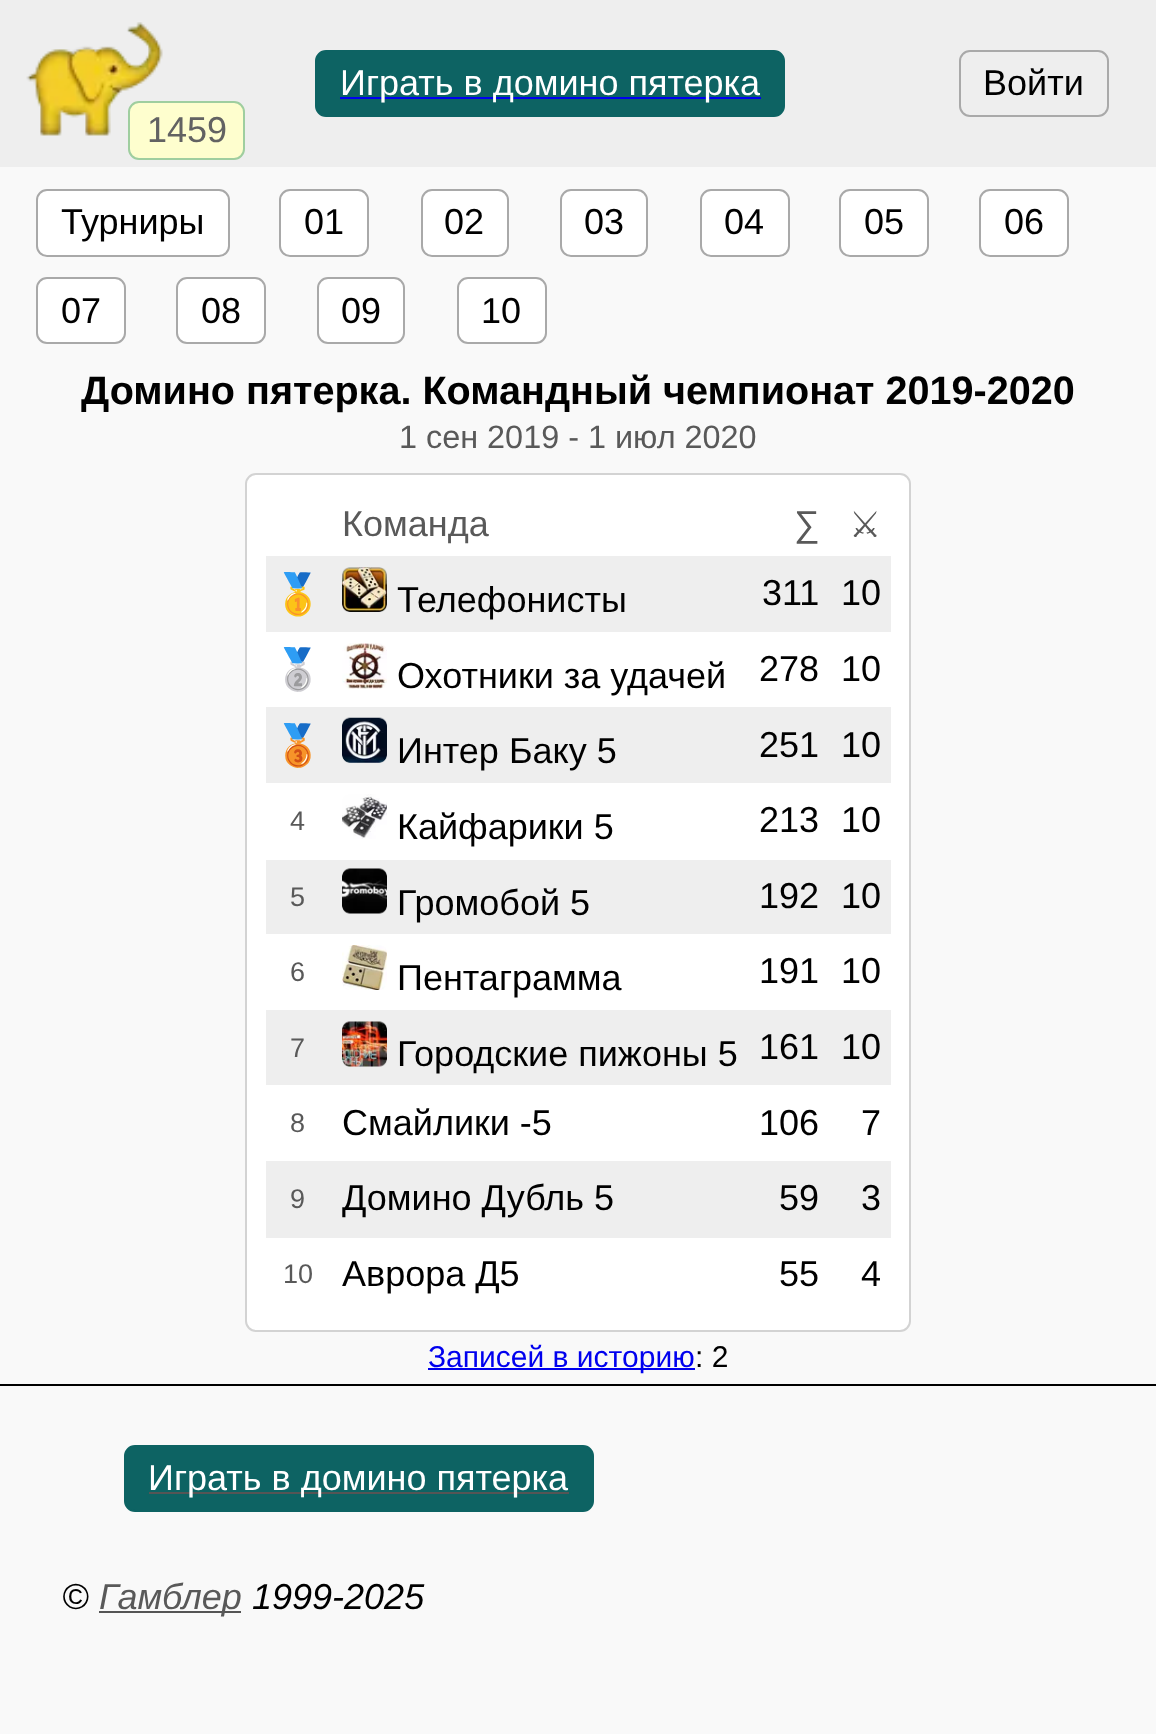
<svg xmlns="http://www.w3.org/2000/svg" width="1156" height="1734">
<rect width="100%" height="100%" fill="#f9f9f9"/>
<rect width="1156" height="167" fill="#eee"/>
<rect x="316" y="51" width="468" height="65" rx="10" fill="#0d6363" stroke="#0d6363" stroke-width="2"/>
<rect x="340" y="97" width="421" height="2" fill="#00e"/>
<text x="340" y="95" style="font-family:Liberation Sans;font-size:36px;fill:#fff">Играть в домино пятерка</text>
<rect x="960" y="51" width="148" height="65" rx="10" fill="none" stroke="#a9a9a9" stroke-width="2"/>
<text x="983" y="95" style="font-family:Liberation Sans;font-size:36px;fill:#000">Войти</text>
<image x="26" y="22" width="137" height="114" href="media/1.png"/>
<rect x="129" y="102" width="115" height="57" rx="10" fill="#fefece" stroke="#9fce9f" stroke-width="2"/>
<text x="147" y="142" style="font-family:Liberation Sans;font-size:36px;fill:#626262">1459</text>
<rect x="37" y="190" width="192" height="66" rx="10" fill="#fff" stroke="#a9a9a9" stroke-width="2"/>
<text x="61" y="234" style="font-family:Liberation Sans;font-size:36px;fill:#000">Турниры</text>
<rect x="280" y="190" width="88" height="66" rx="10" fill="#fff" stroke="#a9a9a9" stroke-width="2"/>
<text x="304" y="234" style="font-family:Liberation Sans;font-size:36px;fill:#000">01</text>
<rect x="422" y="190" width="86" height="66" rx="10" fill="#fff" stroke="#a9a9a9" stroke-width="2"/>
<text x="444" y="234" style="font-family:Liberation Sans;font-size:36px;fill:#000">02</text>
<rect x="561" y="190" width="86" height="66" rx="10" fill="#fff" stroke="#a9a9a9" stroke-width="2"/>
<text x="584" y="234" style="font-family:Liberation Sans;font-size:36px;fill:#000">03</text>
<rect x="701" y="190" width="88" height="66" rx="10" fill="#fff" stroke="#a9a9a9" stroke-width="2"/>
<text x="724" y="234" style="font-family:Liberation Sans;font-size:36px;fill:#000">04</text>
<rect x="840" y="190" width="88" height="66" rx="10" fill="#fff" stroke="#a9a9a9" stroke-width="2"/>
<text x="864" y="234" style="font-family:Liberation Sans;font-size:36px;fill:#000">05</text>
<rect x="980" y="190" width="88" height="66" rx="10" fill="#fff" stroke="#a9a9a9" stroke-width="2"/>
<text x="1004" y="234" style="font-family:Liberation Sans;font-size:36px;fill:#000">06</text>
<rect x="37" y="278" width="88" height="65" rx="10" fill="#fff" stroke="#a9a9a9" stroke-width="2"/>
<text x="61" y="323" style="font-family:Liberation Sans;font-size:36px;fill:#000">07</text>
<rect x="177" y="278" width="88" height="65" rx="10" fill="#fff" stroke="#a9a9a9" stroke-width="2"/>
<text x="201" y="323" style="font-family:Liberation Sans;font-size:36px;fill:#000">08</text>
<rect x="318" y="278" width="86" height="65" rx="10" fill="#fff" stroke="#a9a9a9" stroke-width="2"/>
<text x="341" y="323" style="font-family:Liberation Sans;font-size:36px;fill:#000">09</text>
<rect x="458" y="278" width="88" height="65" rx="10" fill="#fff" stroke="#a9a9a9" stroke-width="2"/>
<text x="481" y="323" style="font-family:Liberation Sans;font-size:36px;fill:#000">10</text>
<text x="81" y="404" style="font-family:Liberation Sans;font-size:39.6px;font-weight:bold;fill:#000">Домино пятерка. Командный чемпионат 2019-2020</text>
<text x="399" y="448" style="font-family:Liberation Sans;font-size:32.4px;fill:#595959">1 сен 2019 - 1 июл 2020</text>
<rect x="246" y="474" width="664" height="857" rx="10" fill="#fff" stroke="#d3d3d3" stroke-width="2"/>
<text x="342" y="536" style="font-family:Liberation Sans;font-size:36px;fill:#595959">Команда</text>
<text x="794" y="536" style="font-family:Liberation Sans;font-size:36px;fill:#595959">∑</text>
<text x="849" y="537" style="font-family:DejaVu Sans;font-size:36px;fill:#595959">⚔</text>
<rect x="266" y="556" width="625" height="76" fill="#eee"/>
<text x="273" y="608" style="font-family:Noto Color Emoji;font-size:40px;fill:#595959">🥇</text>
<image x="342" y="567" width="45" height="45" href="media/2.png"/>
<text x="397" y="612" style="font-family:Liberation Sans;font-size:36px;fill:#000">Телефонисты</text>
<text x="762" y="605" style="font-family:Liberation Sans;font-size:36px;fill:#000">311</text>
<text x="841" y="605" style="font-family:Liberation Sans;font-size:36px;fill:#000">10</text>
<text x="273" y="683" style="font-family:Noto Color Emoji;font-size:40px;fill:#595959">🥈</text>
<image x="342" y="643" width="45" height="46" href="media/3.png"/>
<text x="397" y="688" style="font-family:Liberation Sans;font-size:36px;fill:#000">Охотники за удачей</text>
<text x="759" y="681" style="font-family:Liberation Sans;font-size:36px;fill:#000">278</text>
<text x="841" y="681" style="font-family:Liberation Sans;font-size:36px;fill:#000">10</text>
<rect x="266" y="707" width="625" height="76" fill="#eee"/>
<text x="273" y="759" style="font-family:Noto Color Emoji;font-size:40px;fill:#595959">🥉</text>
<image x="342" y="717" width="45" height="46" href="media/4.png"/>
<text x="397" y="763" style="font-family:Liberation Sans;font-size:36px;fill:#000">Интер Баку 5</text>
<text x="759" y="757" style="font-family:Liberation Sans;font-size:36px;fill:#000">251</text>
<text x="841" y="757" style="font-family:Liberation Sans;font-size:36px;fill:#000">10</text>
<text x="290" y="830" style="font-family:Liberation Sans;font-size:27px;fill:#595959">4</text>
<image x="342" y="794" width="45" height="45" href="media/5.png"/>
<text x="397" y="839" style="font-family:Liberation Sans;font-size:36px;fill:#000">Кайфарики 5</text>
<text x="759" y="832" style="font-family:Liberation Sans;font-size:36px;fill:#000">213</text>
<text x="841" y="832" style="font-family:Liberation Sans;font-size:36px;fill:#000">10</text>
<rect x="266" y="860" width="625" height="74" fill="#eee"/>
<text x="290" y="906" style="font-family:Liberation Sans;font-size:27px;fill:#595959">5</text>
<image x="342" y="868" width="45" height="46" href="media/6.png"/>
<text x="397" y="915" style="font-family:Liberation Sans;font-size:36px;fill:#000">Громобой 5</text>
<text x="759" y="908" style="font-family:Liberation Sans;font-size:36px;fill:#000">192</text>
<text x="841" y="908" style="font-family:Liberation Sans;font-size:36px;fill:#000">10</text>
<text x="290" y="981" style="font-family:Liberation Sans;font-size:27px;fill:#595959">6</text>
<image x="342" y="945" width="45" height="45" href="media/7.png"/>
<text x="397" y="990" style="font-family:Liberation Sans;font-size:36px;fill:#000">Пентаграмма</text>
<text x="759" y="983" style="font-family:Liberation Sans;font-size:36px;fill:#000">191</text>
<text x="841" y="983" style="font-family:Liberation Sans;font-size:36px;fill:#000">10</text>
<rect x="266" y="1010" width="625" height="75" fill="#eee"/>
<text x="290" y="1057" style="font-family:Liberation Sans;font-size:27px;fill:#595959">7</text>
<image x="342" y="1021" width="45" height="46" href="media/8.png"/>
<text x="397" y="1066" style="font-family:Liberation Sans;font-size:36px;fill:#000">Городские пижоны 5</text>
<text x="759" y="1059" style="font-family:Liberation Sans;font-size:36px;fill:#000">161</text>
<text x="841" y="1059" style="font-family:Liberation Sans;font-size:36px;fill:#000">10</text>
<text x="290" y="1132" style="font-family:Liberation Sans;font-size:27px;fill:#595959">8</text>
<text x="342" y="1135" style="font-family:Liberation Sans;font-size:36px;fill:#000">Смайлики -5</text>
<text x="759" y="1135" style="font-family:Liberation Sans;font-size:36px;fill:#000">106</text>
<text x="861" y="1135" style="font-family:Liberation Sans;font-size:36px;fill:#000">7</text>
<rect x="266" y="1161" width="625" height="77" fill="#eee"/>
<text x="290" y="1208" style="font-family:Liberation Sans;font-size:27px;fill:#595959">9</text>
<text x="342" y="1210" style="font-family:Liberation Sans;font-size:36px;fill:#000">Домино Дубль 5</text>
<text x="779" y="1210" style="font-family:Liberation Sans;font-size:36px;fill:#000">59</text>
<text x="861" y="1210" style="font-family:Liberation Sans;font-size:36px;fill:#000">3</text>
<text x="283" y="1283" style="font-family:Liberation Sans;font-size:27px;fill:#595959">10</text>
<text x="342" y="1286" style="font-family:Liberation Sans;font-size:36px;fill:#000">Аврора Д5</text>
<text x="779" y="1286" style="font-family:Liberation Sans;font-size:36px;fill:#000">55</text>
<text x="861" y="1286" style="font-family:Liberation Sans;font-size:36px;fill:#000">4</text>
<rect x="428" y="1368" width="267" height="2" fill="#00e"/>
<text x="428" y="1367" style="font-family:Liberation Sans;font-size:30px;fill:#00e">Записей в историю</text>
<text x="695" y="1367" style="font-family:Liberation Sans;font-size:30px;fill:#000">: 2</text>
<rect y="1384" width="1156" height="2" fill="#000"/>
<rect x="125" y="1446" width="468" height="65" rx="10" fill="#0d6363" stroke="#0d6363" stroke-width="2"/>
<rect x="149" y="1492" width="420" height="2" fill="#555"/>
<text x="148" y="1490" style="font-family:Liberation Sans;font-size:36px;fill:#fff">Играть в домино пятерка</text>
<text x="62" y="1609" style="font-family:Liberation Sans;font-size:36px;font-style:italic;fill:#000">©</text>
<rect x="99" y="1611" width="142" height="2" fill="#555"/>
<text x="99" y="1609" style="font-family:Liberation Sans;font-size:36px;font-style:italic;fill:#595959">Гамблер</text>
<text x="252" y="1609" style="font-family:Liberation Sans;font-size:36px;font-style:italic;fill:#000">1999-2025</text>
</svg>
